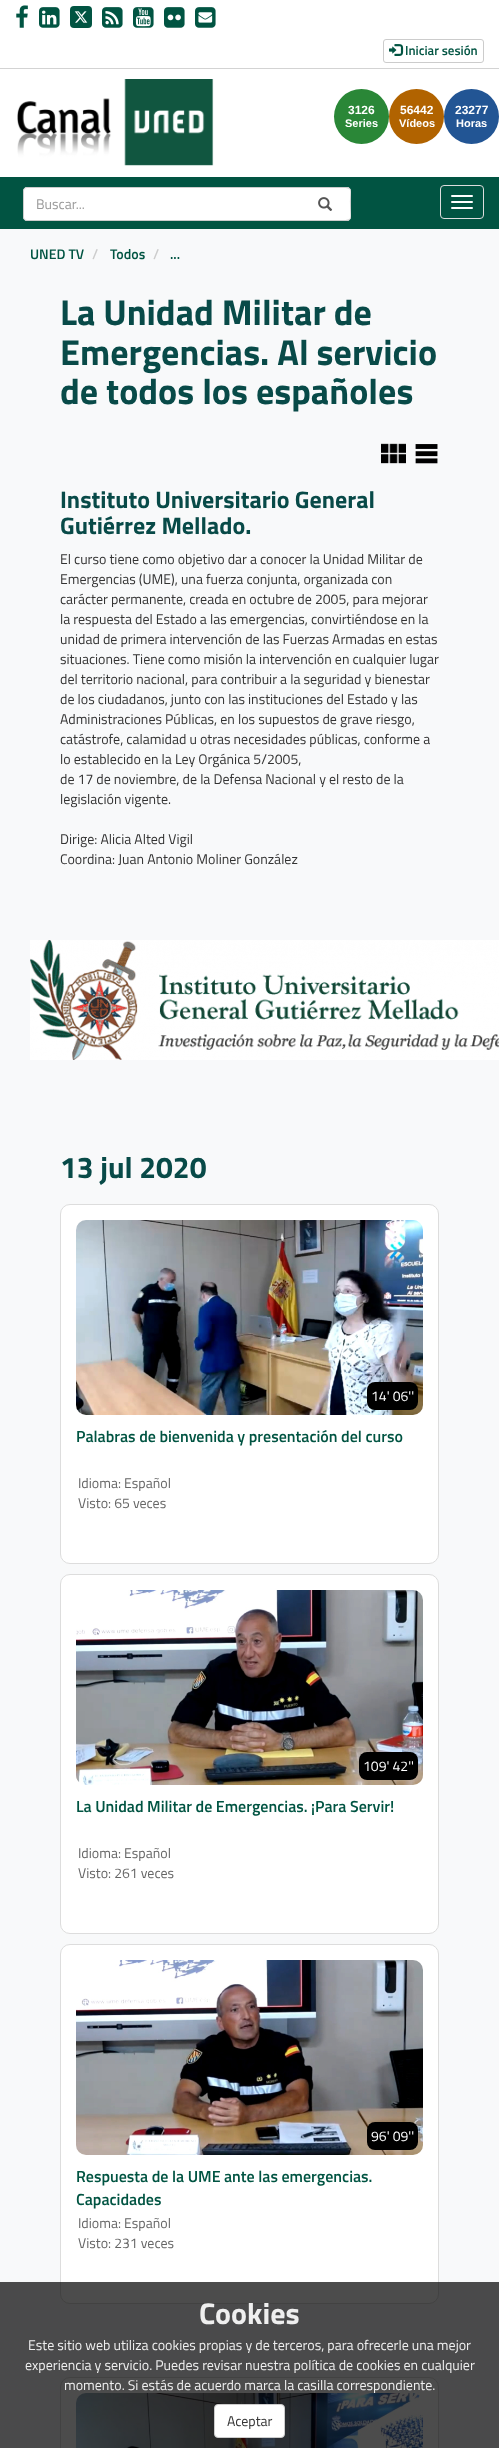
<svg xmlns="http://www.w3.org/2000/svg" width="499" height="2448">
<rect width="100%" height="100%" fill="#fff"/>
<rect y="68" width="499" height="1" fill="#d3d3d3"/>
<image x="16" y="5" width="12" height="23" href="media/1.png"/>
<image x="39" y="7" width="21" height="21" href="media/2.png"/>
<rect x="70" y="6" width="22" height="22" rx="4" fill="#015442"/>
<image x="102" y="7" width="21" height="21" href="media/3.png"/>
<image x="133" y="7" width="21" height="21" href="media/4.png"/>
<image x="164" y="7" width="21" height="21" href="media/5.png"/>
<image x="195" y="7" width="21" height="21" href="media/6.png"/>
<image x="74" y="11" width="14" height="12" href="media/7.png"/>
<rect x="383.5" y="39.5" width="100" height="23" rx="2.5" fill="none" stroke="#ccc"/>
<image x="389" y="44" width="15" height="12" href="media/8.png"/>
<text x="405" y="55" style="font-family:Titillium Web;font-size:13px;font-weight:600;fill:#015442">Iniciar sesión</text>
<image x="17" y="79" width="197" height="87" href="media/9.png"/>
<circle cx="361.5" cy="116.5" r="27.5" fill="#2a8737"/>
<text x="348" y="114" style="font-family:Liberation Sans;font-size:12px;font-weight:bold;fill:#fff">3126</text>
<text x="345" y="127" style="font-family:Liberation Sans;font-size:11px;font-weight:bold;fill:#fff">Series</text>
<circle cx="416.5" cy="116.5" r="27.5" fill="#b16300"/>
<text x="400" y="114" style="font-family:Liberation Sans;font-size:12px;font-weight:bold;fill:#fff">56442</text>
<text x="399" y="127" style="font-family:Liberation Sans;font-size:11px;font-weight:bold;fill:#fff">Vídeos</text>
<circle cx="471.5" cy="116.5" r="27.5" fill="#225594"/>
<text x="455" y="114" style="font-family:Liberation Sans;font-size:12px;font-weight:bold;fill:#fff">23277</text>
<text x="456" y="127" style="font-family:Liberation Sans;font-size:11px;font-weight:bold;fill:#fff">Horas</text>
<rect y="177" width="499" height="52" fill="#015442"/>
<path d="M27 187h273v34h-273c-2 0-4-2-4-4v-26c0-2 2-4 4-4z" fill="#fff"/>
<path d="M27 187h273v34h-273c-2 0-4-2-4-4v-26c0-2 2-4 4-4zm0 1h273v32h-273c-2 0-3-1-3-3v-26c0-2 1-3 3-3z" fill="#ccc" fill-rule="evenodd"/>
<text x="36" y="209" style="font-family:Titillium Web;font-size:14px;fill:#999">Buscar...</text>
<path d="M300 187h47c2 0 4 2 4 4v26c0 2-2 4-4 4h-47z" fill="#fff"/>
<path d="M300 187h47c2 0 4 2 4 4v26c0 2-2 4-4 4h-47zm0 1h39c15 0 11 0 11 16c0 16 4 16-11 16h-39z" fill="#ccc" fill-rule="evenodd"/>
<image x="318" y="197" width="15" height="14" href="media/10.png"/>
<rect x="440.5" y="185.5" width="43" height="33" rx="3.5" fill="none" stroke="#ddd"/>
<rect x="451" y="195" width="22" height="2" rx="1" fill="#fff"/>
<rect x="451" y="201" width="22" height="2" rx="1" fill="#fff"/>
<rect x="451" y="207" width="22" height="2" rx="1" fill="#fff"/>
<rect y="229" width="499" height="2219" fill="#f8f9fa"/>
<text x="30" y="259" style="font-family:Titillium Web;font-size:14px;font-weight:600;fill:#015442">UNED TV</text>
<text x="92" y="259" style="font-family:Titillium Web;font-size:14px;font-weight:600;fill:#ccc">/</text>
<text x="110" y="259" style="font-family:Titillium Web;font-size:14px;font-weight:600;fill:#015442">Todos</text>
<text x="153" y="259" style="font-family:Titillium Web;font-size:14px;font-weight:600;fill:#ccc">/</text>
<text x="170" y="259" style="font-family:Titillium Web;font-size:14px;font-weight:600;fill:#015442">...</text>
<text x="60" y="325" style="font-family:Titillium Web;font-size:36px;font-weight:bold;fill:#084a48">La Unidad Militar de</text>
<text x="60" y="365" style="font-family:Titillium Web;font-size:36px;font-weight:bold;fill:#084a48">Emergencias. Al servicio</text>
<text x="60" y="404" style="font-family:Titillium Web;font-size:36px;font-weight:bold;fill:#084a48">de todos los españoles</text>
<image x="381" y="443" width="25" height="21" href="media/11.png"/>
<image x="415" y="444" width="23" height="20" href="media/12.png"/>
<text x="60" y="508" style="font-family:Titillium Web;font-size:24px;font-weight:bold;fill:#084a48">Instituto Universitario General</text>
<text x="60" y="534" style="font-family:Titillium Web;font-size:24px;font-weight:bold;fill:#084a48">Gutiérrez Mellado.</text>
<text x="60" y="564" style="font-family:Titillium Web;font-size:14px;fill:#333">El curso tiene como objetivo dar a conocer la Unidad Militar de</text>
<text x="60" y="584" style="font-family:Titillium Web;font-size:14px;fill:#333">Emergencias (UME), una fuerza conjunta, organizada con</text>
<text x="60" y="604" style="font-family:Titillium Web;font-size:14px;fill:#333">carácter permanente, creada en octubre de 2005, para mejorar</text>
<text x="60" y="624" style="font-family:Titillium Web;font-size:14px;fill:#333">la respuesta del Estado a las emergencias, convirtiéndose en la</text>
<text x="60" y="644" style="font-family:Titillium Web;font-size:14px;fill:#333">unidad de primera intervención de las Fuerzas Armadas en estas</text>
<text x="60" y="664" style="font-family:Titillium Web;font-size:14px;fill:#333">situaciones. Tiene como misión la intervención en cualquier lugar</text>
<text x="60" y="684" style="font-family:Titillium Web;font-size:14px;fill:#333">del territorio nacional, para contribuir a la seguridad y bienestar</text>
<text x="60" y="704" style="font-family:Titillium Web;font-size:14px;fill:#333">de los ciudadanos, junto con las instituciones del Estado y las</text>
<text x="60" y="724" style="font-family:Titillium Web;font-size:14px;fill:#333">Administraciones Públicas, en los supuestos de grave riesgo,</text>
<text x="60" y="744" style="font-family:Titillium Web;font-size:14px;fill:#333">catástrofe, calamidad u otras necesidades públicas, conforme a</text>
<text x="60" y="764" style="font-family:Titillium Web;font-size:14px;fill:#333">lo establecido en la Ley Orgánica 5/2005,</text>
<text x="60" y="784" style="font-family:Titillium Web;font-size:14px;fill:#333">de 17 de noviembre, de la Defensa Nacional y el resto de la</text>
<text x="60" y="804" style="font-family:Titillium Web;font-size:14px;fill:#333">legislación vigente.</text>
<text x="60" y="844" style="font-family:Titillium Web;font-size:14px;fill:#333">Dirige: Alicia Alted Vigil</text>
<text x="60" y="864" style="font-family:Titillium Web;font-size:14px;fill:#333">Coordina: Juan Antonio Moliner González</text>
<image x="30" y="940" width="469" height="120" href="media/13.png"/>
<text x="60" y="1178" style="font-family:Titillium Web;font-size:30px;font-weight:bold;fill:#084a48">13 jul 2020</text>
<rect x="60.5" y="1204.5" width="378" height="359" rx="9.5" fill="#fff" stroke="#ddd"/>
<image x="76" y="1220" width="347" height="195" href="media/14.png"/>
<rect x="367" y="1382" width="51" height="28" rx="8" fill="#000"/>
<text x="371" y="1401" style="font-family:Titillium Web;font-size:14px;fill:#fff">14' 06''</text>
<text x="76" y="1442" style="font-family:Titillium Web;font-size:16px;font-weight:600;fill:#015442">Palabras de bienvenida y presentación del curso</text>
<text x="78" y="1488" style="font-family:Titillium Web;font-size:14px;fill:#666">Idioma: Español</text>
<text x="78" y="1508" style="font-family:Titillium Web;font-size:14px;fill:#666">Visto: 65 veces</text>
<rect x="60.5" y="1574.5" width="378" height="359" rx="9.5" fill="#fff" stroke="#ddd"/>
<image x="76" y="1590" width="347" height="195" href="media/15.png"/>
<rect x="359" y="1752" width="59" height="28" rx="8" fill="#000"/>
<text x="363" y="1771" style="font-family:Titillium Web;font-size:14px;fill:#fff">109' 42''</text>
<text x="76" y="1812" style="font-family:Titillium Web;font-size:16px;font-weight:600;fill:#015442">La Unidad Militar de Emergencias. ¡Para Servir!</text>
<text x="78" y="1858" style="font-family:Titillium Web;font-size:14px;fill:#666">Idioma: Español</text>
<text x="78" y="1878" style="font-family:Titillium Web;font-size:14px;fill:#666">Visto: 261 veces</text>
<rect x="60.5" y="1944.5" width="378" height="359" rx="9.5" fill="#fff" stroke="#ddd"/>
<image x="76" y="1960" width="347" height="195" href="media/16.png"/>
<rect x="367" y="2122" width="51" height="28" rx="8" fill="#000"/>
<text x="371" y="2141" style="font-family:Titillium Web;font-size:14px;fill:#fff">96' 09''</text>
<text x="76" y="2182" style="font-family:Titillium Web;font-size:16px;font-weight:600;fill:#015442">Respuesta de la UME ante las emergencias.</text>
<text x="76" y="2205" style="font-family:Titillium Web;font-size:16px;font-weight:600;fill:#015442">Capacidades</text>
<text x="78" y="2228" style="font-family:Titillium Web;font-size:14px;fill:#666">Idioma: Español</text>
<text x="78" y="2248" style="font-family:Titillium Web;font-size:14px;fill:#666">Visto: 231 veces</text>
<rect x="60.5" y="2377.5" width="378" height="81" rx="9.5" fill="#fff" stroke="#ddd"/>
<image x="76" y="2393" width="347" height="55" href="media/17.png"/>
<rect y="2282" width="499" height="166" fill="#000000b3"/>
<text x="199" y="2324" style="font-family:Titillium Web;font-size:30px;font-weight:bold;fill:#efefef">Cookies</text>
<text x="28" y="2350" style="font-family:Titillium Web;font-size:14px;fill:#efefef">Este sitio web utiliza cookies propias y de terceros, para ofrecerle una mejor</text>
<text x="25" y="2370" style="font-family:Titillium Web;font-size:14px;fill:#efefef">experiencia y servicio. Puedes revisar nuestra política de cookies en cualquier</text>
<text x="64" y="2390" style="font-family:Titillium Web;font-size:14px;fill:#efefef">momento. Si estás de acuerdo marca la casilla correspondiente.</text>
<rect x="214.5" y="2404.5" width="70" height="33" rx="3.5" fill="#fff" stroke="#ccc"/>
<text x="227" y="2426" style="font-family:Titillium Web;font-size:14px;fill:#333">Aceptar</text>
</svg>
